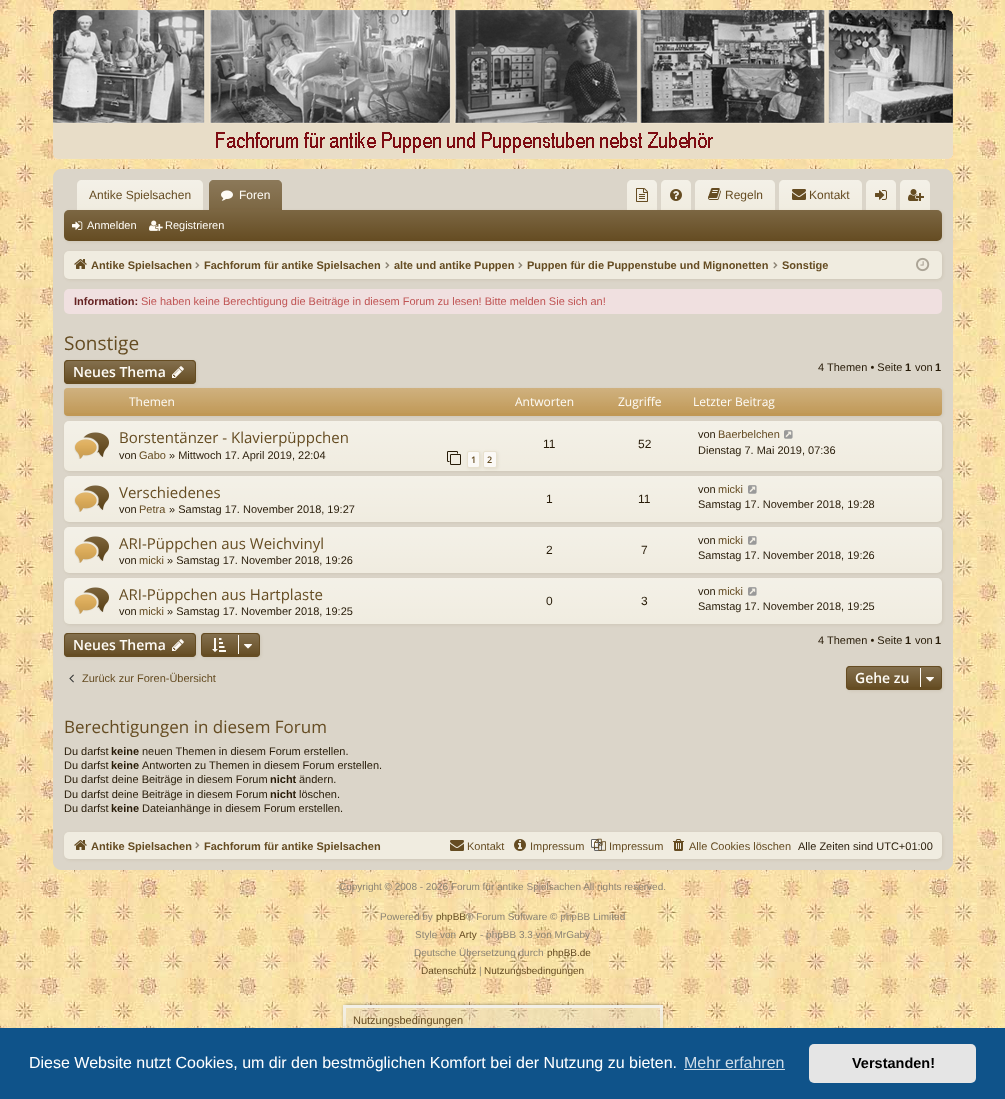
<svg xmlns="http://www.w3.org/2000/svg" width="1005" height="1099">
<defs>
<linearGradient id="g1" gradientUnits="userSpaceOnUse" x1="140" y1="180" x2="140" y2="210"><stop offset="0" stop-color="#fff" stop-opacity="0.25"/><stop offset="1" stop-color="#fff" stop-opacity="0"/></linearGradient>
<linearGradient id="g2" gradientUnits="userSpaceOnUse" x1="246" y1="180" x2="246" y2="210"><stop offset="0" stop-color="#fff" stop-opacity="0.25"/><stop offset="1" stop-color="#fff" stop-opacity="0.15"/></linearGradient>
<linearGradient id="g3" gradientUnits="userSpaceOnUse" x1="642" y1="180" x2="642" y2="210"><stop offset="0" stop-color="#fff" stop-opacity="0.25"/><stop offset="1" stop-color="#fff" stop-opacity="0"/></linearGradient>
<linearGradient id="g4" gradientUnits="userSpaceOnUse" x1="676" y1="180" x2="676" y2="210"><stop offset="0" stop-color="#fff" stop-opacity="0.25"/><stop offset="1" stop-color="#fff" stop-opacity="0"/></linearGradient>
<linearGradient id="g5" gradientUnits="userSpaceOnUse" x1="735" y1="180" x2="735" y2="210"><stop offset="0" stop-color="#fff" stop-opacity="0.25"/><stop offset="1" stop-color="#fff" stop-opacity="0"/></linearGradient>
<linearGradient id="g6" gradientUnits="userSpaceOnUse" x1="821" y1="180" x2="821" y2="210"><stop offset="0" stop-color="#fff" stop-opacity="0.25"/><stop offset="1" stop-color="#fff" stop-opacity="0"/></linearGradient>
<linearGradient id="g7" gradientUnits="userSpaceOnUse" x1="881" y1="180" x2="881" y2="210"><stop offset="0" stop-color="#fff" stop-opacity="0.25"/><stop offset="1" stop-color="#fff" stop-opacity="0"/></linearGradient>
<linearGradient id="g8" gradientUnits="userSpaceOnUse" x1="915" y1="180" x2="915" y2="210"><stop offset="0" stop-color="#fff" stop-opacity="0.25"/><stop offset="1" stop-color="#fff" stop-opacity="0"/></linearGradient>
<linearGradient id="g9" gradientUnits="userSpaceOnUse" x1="503" y1="210" x2="503" y2="241"><stop offset="0" stop-color="#fff" stop-opacity="0.15"/><stop offset="1" stop-color="#fff" stop-opacity="0"/></linearGradient>
<clipPath id="clip1"><rect x="64" y="360" width="132" height="24" rx="4"/></clipPath>
<linearGradient id="g10" gradientUnits="userSpaceOnUse" x1="130" y1="361" x2="130" y2="383"><stop offset="0" stop-color="#fff" stop-opacity="0.2"/><stop offset="1" stop-color="#fff" stop-opacity="0"/></linearGradient>
<linearGradient id="g11" gradientUnits="userSpaceOnUse" x1="503" y1="421" x2="503" y2="471"><stop offset="0" stop-color="#fff" stop-opacity="0.25"/><stop offset="1" stop-color="#fff" stop-opacity="0"/></linearGradient>
<linearGradient id="g12" gradientUnits="userSpaceOnUse" x1="503" y1="476" x2="503" y2="522"><stop offset="0" stop-color="#fff" stop-opacity="0.25"/><stop offset="1" stop-color="#fff" stop-opacity="0"/></linearGradient>
<linearGradient id="g13" gradientUnits="userSpaceOnUse" x1="503" y1="527" x2="503" y2="573"><stop offset="0" stop-color="#fff" stop-opacity="0.25"/><stop offset="1" stop-color="#fff" stop-opacity="0"/></linearGradient>
<linearGradient id="g14" gradientUnits="userSpaceOnUse" x1="503" y1="578" x2="503" y2="624"><stop offset="0" stop-color="#fff" stop-opacity="0.25"/><stop offset="1" stop-color="#fff" stop-opacity="0"/></linearGradient>
<clipPath id="clip2"><rect x="64" y="633" width="132" height="24" rx="4"/></clipPath>
<linearGradient id="g15" gradientUnits="userSpaceOnUse" x1="130" y1="634" x2="130" y2="656"><stop offset="0" stop-color="#fff" stop-opacity="0.2"/><stop offset="1" stop-color="#fff" stop-opacity="0"/></linearGradient>
<clipPath id="clip3"><rect x="201" y="633" width="59" height="24" rx="4"/></clipPath>
<linearGradient id="g16" gradientUnits="userSpaceOnUse" x1="231" y1="634" x2="231" y2="656"><stop offset="0" stop-color="#fff" stop-opacity="0.2"/><stop offset="1" stop-color="#fff" stop-opacity="0"/></linearGradient>
<clipPath id="clip4"><rect x="846" y="666" width="96" height="24" rx="4"/></clipPath>
<linearGradient id="g17" gradientUnits="userSpaceOnUse" x1="894" y1="667" x2="894" y2="689"><stop offset="0" stop-color="#fff" stop-opacity="0.2"/><stop offset="1" stop-color="#fff" stop-opacity="0"/></linearGradient>
<clipPath id="clip5"><path d="M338 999h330v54h-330zm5 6h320v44h-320z" clip-rule="evenodd"/></clipPath>
<linearGradient id="g18" gradientUnits="userSpaceOnUse" x1="345" y1="1008" x2="345" y2="1058"><stop offset="0" stop-color="#f3f0e6"/><stop offset="1" stop-color="#f3f0e6" stop-opacity="0"/></linearGradient>
<linearGradient id="g19" gradientUnits="userSpaceOnUse" x1="662" y1="1008" x2="662" y2="1058"><stop offset="0" stop-color="#f3f0e6"/><stop offset="1" stop-color="#f3f0e6" stop-opacity="0"/></linearGradient>
</defs>
<rect width="100%" height="100%" fill="#fff"/>
<image x="0" y="0" width="1005" height="1028" href="media/1.png"/>
<image x="53" y="10" width="900" height="149" href="media/2.png"/>
<rect x="53.5" y="169.5" width="899" height="700" rx="7.5" fill="#dbd5c9" stroke="#dbd5c9"/>
<path d="M82 180h116c3 0 5 2 5 5v25h-126v-25c0-3 2-5 5-5z" fill="#f0ece0"/>
<path d="M82 180h116c3 0 5 2 5 5v25h-126v-25c0-3 2-5 5-5z" fill="url(#g1)"/>
<text x="89" y="199" style="font-family:Liberation Sans;font-size:12px;fill:#654c22">Antike Spielsachen</text>
<path d="M214 180h63c3 0 5 2 5 5v25h-73v-25c0-3 2-5 5-5z" fill="#654c22"/>
<path d="M214 180h63c3 0 5 2 5 5v25h-73v-25c0-3 2-5 5-5z" fill="url(#g2)"/>
<image x="221" y="190" width="12" height="11" href="media/3.png"/>
<text x="239" y="199" style="font-family:Liberation Sans;font-size:12px;fill:#fefbf5">Foren</text>
<path d="M632 180h20c3 0 5 2 5 5v25h-30v-25c0-3 2-5 5-5z" fill="#f0ece0"/>
<path d="M632 180h20c3 0 5 2 5 5v25h-30v-25c0-3 2-5 5-5z" fill="url(#g3)"/>
<path d="M666 180h20c3 0 5 2 5 5v25h-30v-25c0-3 2-5 5-5z" fill="#f0ece0"/>
<path d="M666 180h20c3 0 5 2 5 5v25h-30v-25c0-3 2-5 5-5z" fill="url(#g4)"/>
<path d="M700 180h70c3 0 5 2 5 5v25h-80v-25c0-3 2-5 5-5z" fill="#f0ece0"/>
<path d="M700 180h70c3 0 5 2 5 5v25h-80v-25c0-3 2-5 5-5z" fill="url(#g5)"/>
<path d="M784 180h73c3 0 5 2 5 5v25h-83v-25c0-3 2-5 5-5z" fill="#f0ece0"/>
<path d="M784 180h73c3 0 5 2 5 5v25h-83v-25c0-3 2-5 5-5z" fill="url(#g6)"/>
<path d="M871 180h20c3 0 5 2 5 5v25h-30v-25c0-3 2-5 5-5z" fill="#f0ece0"/>
<path d="M871 180h20c3 0 5 2 5 5v25h-30v-25c0-3 2-5 5-5z" fill="url(#g7)"/>
<path d="M905 180h20c3 0 5 2 5 5v25h-30v-25c0-3 2-5 5-5z" fill="#f0ece0"/>
<path d="M905 180h20c3 0 5 2 5 5v25h-30v-25c0-3 2-5 5-5z" fill="url(#g8)"/>
<rect x="65" y="211" width="878" height="31" rx="5" fill="#654c221a" filter="blur(1.5px)"/>
<rect x="64" y="210" width="878" height="31" rx="5" fill="#654c22"/>
<rect x="64" y="210" width="878" height="31" rx="5" fill="url(#g9)"/>
<path d="M211 209h69c1 0 2 1 2 2h-73c0-1 1-2 2-2z" fill="#654c22"/>
<path d="M211 209h69c1 0 2 1 2 2h-73c0-1 1-2 2-2z" fill="#ffffff26"/>
<image x="636" y="188" width="12" height="14" href="media/4.png"/>
<image x="670" y="189" width="12" height="12" href="media/5.png"/>
<image x="708" y="188" width="13" height="12" href="media/6.png"/>
<text x="725" y="199" style="font-family:Liberation Sans;font-size:12px;fill:#654c22">Regeln</text>
<image x="792" y="189" width="14" height="11" href="media/7.png"/>
<text x="809" y="199" style="font-family:Liberation Sans;font-size:12px;fill:#654c22">Kontakt</text>
<image x="875" y="190" width="12" height="10" href="media/8.png"/>
<image x="908" y="189" width="16" height="12" href="media/9.png"/>
<image x="72" y="221" width="11" height="9" href="media/10.png"/>
<text x="87" y="229" style="font-family:Liberation Sans;font-size:11px;fill:#fefbf5">Anmelden</text>
<image x="149" y="220" width="14" height="11" href="media/11.png"/>
<text x="165" y="229" style="font-family:Liberation Sans;font-size:11px;fill:#fefbf5">Registrieren</text>
<rect x="65" y="252" width="878" height="28" rx="5" fill="#654c221a" filter="blur(1.5px)"/>
<rect x="64" y="251" width="878" height="28" rx="5" fill="#f0ece0"/>
<image x="74" y="259" width="13" height="10" href="media/12.png"/>
<text x="91" y="269" style="font-family:Liberation Sans;font-size:11px;font-weight:bold;fill:#654c22">Antike Spielsachen</text>
<image x="195" y="262" width="5" height="7" href="media/13.png"/>
<text x="204" y="269" style="font-family:Liberation Sans;font-size:11px;font-weight:bold;fill:#654c22">Fachforum für antike Spielsachen</text>
<image x="385" y="262" width="5" height="7" href="media/13.png"/>
<text x="394" y="269" style="font-family:Liberation Sans;font-size:11px;font-weight:bold;fill:#654c22">alte und antike Puppen</text>
<image x="518" y="262" width="5" height="7" href="media/13.png"/>
<text x="527" y="269" style="font-family:Liberation Sans;font-size:11px;font-weight:bold;fill:#654c22">Puppen für die Puppenstube und Mignonetten</text>
<image x="773" y="262" width="5" height="7" href="media/13.png"/>
<text x="782" y="269" style="font-family:Liberation Sans;font-size:11px;font-weight:bold;fill:#654c22">Sonstige</text>
<image x="916" y="257" width="14" height="15" href="media/14.png"/>
<rect x="64" y="289" width="878" height="25" rx="5" fill="#f0e0e0"/>
<text x="74" y="305" style="font-family:Liberation Sans;font-size:11px;font-weight:bold;fill:#652222">Information:</text>
<text x="141" y="305" style="font-family:Liberation Sans;font-size:11px;fill:#c05555">Sie haben keine Berechtigung die Beiträge in diesem Forum zu lesen! Bitte melden Sie sich an!</text>
<text x="64" y="350" style="font-family:Open Sans;font-size:19px;fill:#654c22">Sonstige</text>
<rect x="65" y="361" width="132" height="24" rx="4" fill="#654c221a" filter="blur(1.5px)"/>
<rect x="64" y="360" width="132" height="24" rx="4" fill="#654c22"/>
<g clip-path="url(#clip1)">
<rect x="64" y="361" width="132" height="20" fill="url(#g10)"/>
</g>
<rect x="64.5" y="360.5" width="131" height="23" rx="3.5" fill="none" stroke="#654c22"/>
<text x="73" y="377" style="font-family:Open Sans;font-size:14px;font-weight:600;fill:#fefbf5">Neues Thema</text>
<image x="172" y="366" width="12" height="12" href="media/15.png"/>
<text x="818" y="371" style="font-family:Liberation Sans;font-size:11px;fill:#271b08">4 Themen • Seite</text>
<text x="905" y="371" style="font-family:Liberation Sans;font-size:11px;font-weight:bold;fill:#271b08">1</text>
<text x="915" y="371" style="font-family:Liberation Sans;font-size:11px;fill:#271b08">von</text>
<text x="935" y="371" style="font-family:Liberation Sans;font-size:11px;font-weight:bold;fill:#271b08">1</text>
<rect x="65" y="422" width="878" height="50" rx="5" fill="#654c221a" filter="blur(1.5px)"/>
<rect x="64" y="421" width="878" height="50" rx="5" fill="#f0ece0"/>
<rect x="64" y="421" width="878" height="50" rx="5" fill="url(#g11)"/>
<rect x="65" y="389" width="878" height="28" rx="4" fill="#654c221a" filter="blur(1.5px)"/>
<rect x="64" y="388" width="878" height="28" rx="4" fill="#c09855"/>
<image x="64" y="388" width="878" height="25" href="media/16.png"/>
<text x="129" y="406" style="font-family:Open Sans;font-size:12px;fill:#fefbf5">Themen</text>
<text x="515" y="406" style="font-family:Open Sans;font-size:12px;fill:#fefbf5">Antworten</text>
<text x="618" y="406" style="font-family:Open Sans;font-size:12px;fill:#fefbf5">Zugriffe</text>
<text x="693" y="406" style="font-family:Open Sans;font-size:12px;fill:#fefbf5">Letzter Beitrag</text>
<image x="74" y="432" width="35" height="27" href="media/17.png"/>
<text x="119" y="443" style="font-family:Open Sans;font-size:15px;fill:#654c22">Borstentänzer - Klavierpüppchen</text>
<text x="119" y="459" style="font-family:Liberation Sans;font-size:11px;fill:#271b08">von</text>
<text x="139" y="459" style="font-family:Liberation Sans;font-size:11px;fill:#654c22">Gabo</text>
<text x="169" y="459" style="font-family:Liberation Sans;font-size:11px;fill:#271b08">» Mittwoch 17. April 2019, 22:04</text>
<image x="447" y="451" width="14" height="14" href="media/18.png"/>
<rect x="468" y="452" width="13" height="17" rx="2" fill="#654c221a" filter="blur(1.5px)"/>
<rect x="467.5" y="451.5" width="12" height="16" rx="1.5" fill="#fbf9f6" stroke="#e8e1cf"/>
<text x="471" y="463" style="font-family:Open Sans;font-size:9px;font-weight:600;fill:#654c22">1</text>
<rect x="484" y="452" width="14" height="17" rx="2" fill="#654c221a" filter="blur(1.5px)"/>
<rect x="483.5" y="451.5" width="13" height="16" rx="1.5" fill="#fbf9f6" stroke="#e8e1cf"/>
<text x="487" y="463" style="font-family:Open Sans;font-size:9px;font-weight:600;fill:#654c22">2</text>
<text x="543" y="448" style="font-family:Liberation Sans;font-size:12px;fill:#271b08">11</text>
<text x="638" y="448" style="font-family:Liberation Sans;font-size:12px;fill:#271b08">52</text>
<text x="698" y="438" style="font-family:Liberation Sans;font-size:11px;fill:#271b08">von</text>
<text x="718" y="438" style="font-family:Liberation Sans;font-size:11px;fill:#654c22">Baerbelchen</text>
<image x="784" y="430" width="9" height="9" href="media/19.png"/>
<text x="698" y="454" style="font-family:Liberation Sans;font-size:11px;fill:#271b08">Dienstag 7. Mai 2019, 07:36</text>
<rect x="65" y="477" width="878" height="46" rx="5" fill="#654c221a" filter="blur(1.5px)"/>
<rect x="64" y="476" width="878" height="46" rx="5" fill="#f0ece0"/>
<rect x="64" y="476" width="878" height="46" rx="5" fill="url(#g12)"/>
<image x="74" y="485" width="35" height="27" href="media/20.png"/>
<text x="119" y="498" style="font-family:Open Sans;font-size:15px;fill:#654c22">Verschiedenes</text>
<text x="119" y="513" style="font-family:Liberation Sans;font-size:11px;fill:#271b08">von</text>
<text x="139" y="513" style="font-family:Liberation Sans;font-size:11px;fill:#654c22">Petra</text>
<text x="169" y="513" style="font-family:Liberation Sans;font-size:11px;fill:#271b08">» Samstag 17. November 2018, 19:27</text>
<text x="546" y="503" style="font-family:Liberation Sans;font-size:12px;fill:#271b08">1</text>
<text x="638" y="503" style="font-family:Liberation Sans;font-size:12px;fill:#271b08">11</text>
<text x="698" y="493" style="font-family:Liberation Sans;font-size:11px;fill:#271b08">von</text>
<text x="718" y="493" style="font-family:Liberation Sans;font-size:11px;fill:#654c22">micki</text>
<image x="748" y="485" width="9" height="9" href="media/21.png"/>
<text x="698" y="508" style="font-family:Liberation Sans;font-size:11px;fill:#271b08">Samstag 17. November 2018, 19:28</text>
<rect x="65" y="528" width="878" height="46" rx="5" fill="#654c221a" filter="blur(1.5px)"/>
<rect x="64" y="527" width="878" height="46" rx="5" fill="#f0ece0"/>
<rect x="64" y="527" width="878" height="46" rx="5" fill="url(#g13)"/>
<image x="74" y="536" width="35" height="27" href="media/20.png"/>
<text x="119" y="549" style="font-family:Open Sans;font-size:15px;fill:#654c22">ARI-Püppchen aus Weichvinyl</text>
<text x="119" y="564" style="font-family:Liberation Sans;font-size:11px;fill:#271b08">von</text>
<text x="139" y="564" style="font-family:Liberation Sans;font-size:11px;fill:#654c22">micki</text>
<text x="167" y="564" style="font-family:Liberation Sans;font-size:11px;fill:#271b08">» Samstag 17. November 2018, 19:26</text>
<text x="546" y="554" style="font-family:Liberation Sans;font-size:12px;fill:#271b08">2</text>
<text x="641" y="554" style="font-family:Liberation Sans;font-size:12px;fill:#271b08">7</text>
<text x="698" y="544" style="font-family:Liberation Sans;font-size:11px;fill:#271b08">von</text>
<text x="718" y="544" style="font-family:Liberation Sans;font-size:11px;fill:#654c22">micki</text>
<image x="748" y="536" width="9" height="9" href="media/21.png"/>
<text x="698" y="559" style="font-family:Liberation Sans;font-size:11px;fill:#271b08">Samstag 17. November 2018, 19:26</text>
<rect x="65" y="579" width="878" height="46" rx="5" fill="#654c221a" filter="blur(1.5px)"/>
<rect x="64" y="578" width="878" height="46" rx="5" fill="#f0ece0"/>
<rect x="64" y="578" width="878" height="46" rx="5" fill="url(#g14)"/>
<image x="74" y="587" width="35" height="27" href="media/20.png"/>
<text x="119" y="600" style="font-family:Open Sans;font-size:15px;fill:#654c22">ARI-Püppchen aus Hartplaste</text>
<text x="119" y="615" style="font-family:Liberation Sans;font-size:11px;fill:#271b08">von</text>
<text x="139" y="615" style="font-family:Liberation Sans;font-size:11px;fill:#654c22">micki</text>
<text x="167" y="615" style="font-family:Liberation Sans;font-size:11px;fill:#271b08">» Samstag 17. November 2018, 19:25</text>
<text x="546" y="605" style="font-family:Liberation Sans;font-size:12px;fill:#271b08">0</text>
<text x="641" y="605" style="font-family:Liberation Sans;font-size:12px;fill:#271b08">3</text>
<text x="698" y="595" style="font-family:Liberation Sans;font-size:11px;fill:#271b08">von</text>
<text x="718" y="595" style="font-family:Liberation Sans;font-size:11px;fill:#654c22">micki</text>
<image x="748" y="587" width="9" height="9" href="media/21.png"/>
<text x="698" y="610" style="font-family:Liberation Sans;font-size:11px;fill:#271b08">Samstag 17. November 2018, 19:25</text>
<rect x="65" y="634" width="132" height="24" rx="4" fill="#654c221a" filter="blur(1.5px)"/>
<rect x="64" y="633" width="132" height="24" rx="4" fill="#654c22"/>
<g clip-path="url(#clip2)">
<rect x="64" y="634" width="132" height="20" fill="url(#g15)"/>
</g>
<rect x="64.5" y="633.5" width="131" height="23" rx="3.5" fill="none" stroke="#654c22"/>
<text x="73" y="650" style="font-family:Open Sans;font-size:14px;font-weight:600;fill:#fefbf5">Neues Thema</text>
<image x="172" y="639" width="12" height="12" href="media/15.png"/>
<rect x="202" y="634" width="59" height="24" rx="4" fill="#654c221a" filter="blur(1.5px)"/>
<rect x="201" y="633" width="59" height="24" rx="4" fill="#654c22"/>
<g clip-path="url(#clip3)">
<rect x="201" y="634" width="59" height="20" fill="url(#g16)"/>
</g>
<rect x="201.5" y="633.5" width="58" height="23" rx="3.5" fill="none" stroke="#654c22"/>
<image x="212" y="638" width="14" height="14" href="media/22.png"/>
<rect x="238" y="635" width="1" height="19" fill="#fefbf5"/>
<image x="244" y="644" width="8" height="5" href="media/23.png"/>
<text x="818" y="644" style="font-family:Liberation Sans;font-size:11px;fill:#271b08">4 Themen • Seite</text>
<text x="905" y="644" style="font-family:Liberation Sans;font-size:11px;font-weight:bold;fill:#271b08">1</text>
<text x="915" y="644" style="font-family:Liberation Sans;font-size:11px;fill:#271b08">von</text>
<text x="935" y="644" style="font-family:Liberation Sans;font-size:11px;font-weight:bold;fill:#271b08">1</text>
<image x="69" y="674" width="5" height="9" href="media/24.png"/>
<text x="82" y="682" style="font-family:Liberation Sans;font-size:11px;fill:#654c22">Zurück zur Foren-Übersicht</text>
<rect x="847" y="667" width="96" height="24" rx="4" fill="#654c221a" filter="blur(1.5px)"/>
<rect x="846" y="666" width="96" height="24" rx="4" fill="#654c22"/>
<g clip-path="url(#clip4)">
<rect x="846" y="667" width="96" height="20" fill="url(#g17)"/>
</g>
<rect x="846.5" y="666.5" width="95" height="23" rx="3.5" fill="none" stroke="#654c22"/>
<text x="855" y="683" style="font-family:Open Sans;font-size:14px;font-weight:600;fill:#fefbf5">Gehe zu</text>
<rect x="920" y="668" width="1" height="19" fill="#fefbf5"/>
<image x="926" y="677" width="8" height="5" href="media/23.png"/>
<text x="64" y="733" style="font-family:Open Sans;font-size:17px;fill:#654c22">Berechtigungen in diesem Forum</text>
<text x="64" y="755" style="font-family:Liberation Sans;font-size:11px;fill:#271b08">Du darfst</text>
<text x="111" y="755" style="font-family:Liberation Sans;font-size:11px;font-weight:bold;fill:#271b08">keine</text>
<text x="142" y="755" style="font-family:Liberation Sans;font-size:11px;fill:#271b08">neuen Themen in diesem Forum erstellen.</text>
<text x="64" y="769" style="font-family:Liberation Sans;font-size:11px;fill:#271b08">Du darfst</text>
<text x="111" y="769" style="font-family:Liberation Sans;font-size:11px;font-weight:bold;fill:#271b08">keine</text>
<text x="142" y="769" style="font-family:Liberation Sans;font-size:11px;fill:#271b08">Antworten zu Themen in diesem Forum erstellen.</text>
<text x="64" y="783" style="font-family:Liberation Sans;font-size:11px;fill:#271b08">Du darfst deine Beiträge in diesem Forum</text>
<text x="270" y="783" style="font-family:Liberation Sans;font-size:11px;font-weight:bold;fill:#271b08">nicht</text>
<text x="299" y="783" style="font-family:Liberation Sans;font-size:11px;fill:#271b08">ändern.</text>
<text x="64" y="798" style="font-family:Liberation Sans;font-size:11px;fill:#271b08">Du darfst deine Beiträge in diesem Forum</text>
<text x="270" y="798" style="font-family:Liberation Sans;font-size:11px;font-weight:bold;fill:#271b08">nicht</text>
<text x="299" y="798" style="font-family:Liberation Sans;font-size:11px;fill:#271b08">löschen.</text>
<text x="64" y="812" style="font-family:Liberation Sans;font-size:11px;fill:#271b08">Du darfst</text>
<text x="111" y="812" style="font-family:Liberation Sans;font-size:11px;font-weight:bold;fill:#271b08">keine</text>
<text x="142" y="812" style="font-family:Liberation Sans;font-size:11px;fill:#271b08">Dateianhänge in diesem Forum erstellen.</text>
<rect x="65" y="833" width="878" height="27" rx="5" fill="#654c221a" filter="blur(1.5px)"/>
<rect x="64" y="832" width="878" height="27" rx="5" fill="#f0ece0"/>
<image x="74" y="840" width="13" height="10" href="media/12.png"/>
<text x="91" y="850" style="font-family:Liberation Sans;font-size:11px;font-weight:bold;fill:#654c22">Antike Spielsachen</text>
<image x="195" y="842" width="5" height="7" href="media/13.png"/>
<text x="204" y="850" style="font-family:Liberation Sans;font-size:11px;font-weight:bold;fill:#654c22">Fachforum für antike Spielsachen</text>
<image x="450" y="840" width="14" height="11" href="media/25.png"/>
<text x="467" y="850" style="font-family:Liberation Sans;font-size:11px;fill:#654c22">Kontakt</text>
<image x="514" y="839" width="12" height="12" href="media/26.png"/>
<text x="530" y="850" style="font-family:Liberation Sans;font-size:11px;fill:#654c22">Impressum</text>
<image x="591" y="839" width="11" height="12" href="media/27.png"/>
<image x="594" y="838" width="12" height="13" href="media/28.png"/>
<text x="609" y="850" style="font-family:Liberation Sans;font-size:11px;fill:#654c22">Impressum</text>
<image x="673" y="839" width="11" height="12" href="media/29.png"/>
<text x="689" y="850" style="font-family:Liberation Sans;font-size:11px;fill:#654c22">Alle Cookies löschen</text>
<text x="798" y="850" style="font-family:Liberation Sans;font-size:11px;fill:#271b08">Alle Zeiten sind UTC+01:00</text>
<text x="339" y="890" style="font-family:Liberation Sans;font-size:10px;fill:#8b8374">Copyright © 2008 - 2026 Forum für antike Spielsachen All rights reserved.</text>
<text x="380" y="920" style="font-family:Liberation Sans;font-size:10px;fill:#8b8374">Powered by</text>
<text x="436" y="920" style="font-family:Liberation Sans;font-size:10px;fill:#654c22">phpBB</text>
<text x="466" y="920" style="font-family:Liberation Sans;font-size:10px;fill:#8b8374">® Forum Software © phpBB Limited</text>
<text x="415" y="938" style="font-family:Liberation Sans;font-size:10px;fill:#8b8374">Style von</text>
<text x="459" y="938" style="font-family:Liberation Sans;font-size:10px;fill:#654c22">Arty</text>
<text x="480" y="938" style="font-family:Liberation Sans;font-size:10px;fill:#8b8374">- phpBB 3.3 von MrGaby</text>
<text x="414" y="956" style="font-family:Liberation Sans;font-size:10px;fill:#8b8374">Deutsche Übersetzung durch</text>
<text x="547" y="956" style="font-family:Liberation Sans;font-size:10px;fill:#654c22">phpBB.de</text>
<text x="421" y="974" style="font-family:Liberation Sans;font-size:10px;fill:#654c22">Datenschutz</text>
<text x="479" y="974" style="font-family:Liberation Sans;font-size:10px;fill:#8b8374">|</text>
<text x="484" y="974" style="font-family:Liberation Sans;font-size:10px;fill:#654c22">Nutzungsbedingungen</text>
<g clip-path="url(#clip5)">
<rect x="345" y="1006" width="316" height="40" fill="#020202b3" filter="blur(2px)"/>
</g>
<rect x="343" y="1008" width="320" height="20" fill="#dbd5c94d"/>
<rect x="343" y="1005" width="320" height="3" fill="#f3f0e6"/>
<rect x="343" y="1008" width="3" height="20" fill="url(#g18)"/>
<text x="353" y="1024" style="font-family:Liberation Sans;font-size:11px;fill:#654c22">Nutzungsbedingungen</text>
<rect x="660" y="1008" width="3" height="20" fill="url(#g19)"/>
<rect y="1028" width="1005" height="71" fill="#0f538a"/>
<text x="29" y="1068" style="font-family:Liberation Sans;font-size:16px;fill:#fff">Diese Website nutzt Cookies, um dir den bestmöglichen Komfort bei der Nutzung zu bieten.</text>
<text x="684" y="1068" style="font-family:Liberation Sans;font-size:16px;fill:#cfdde8">Mehr erfahren</text>
<rect x="684" y="1069" width="101" height="1" fill="#cfdde8"/>
<rect x="809" y="1044" width="167" height="39" rx="5" fill="#e5e5e5"/>
<text x="852" y="1068" style="font-family:Liberation Sans;font-size:14.5px;font-weight:bold;fill:#000">Verstanden!</text>
</svg>
